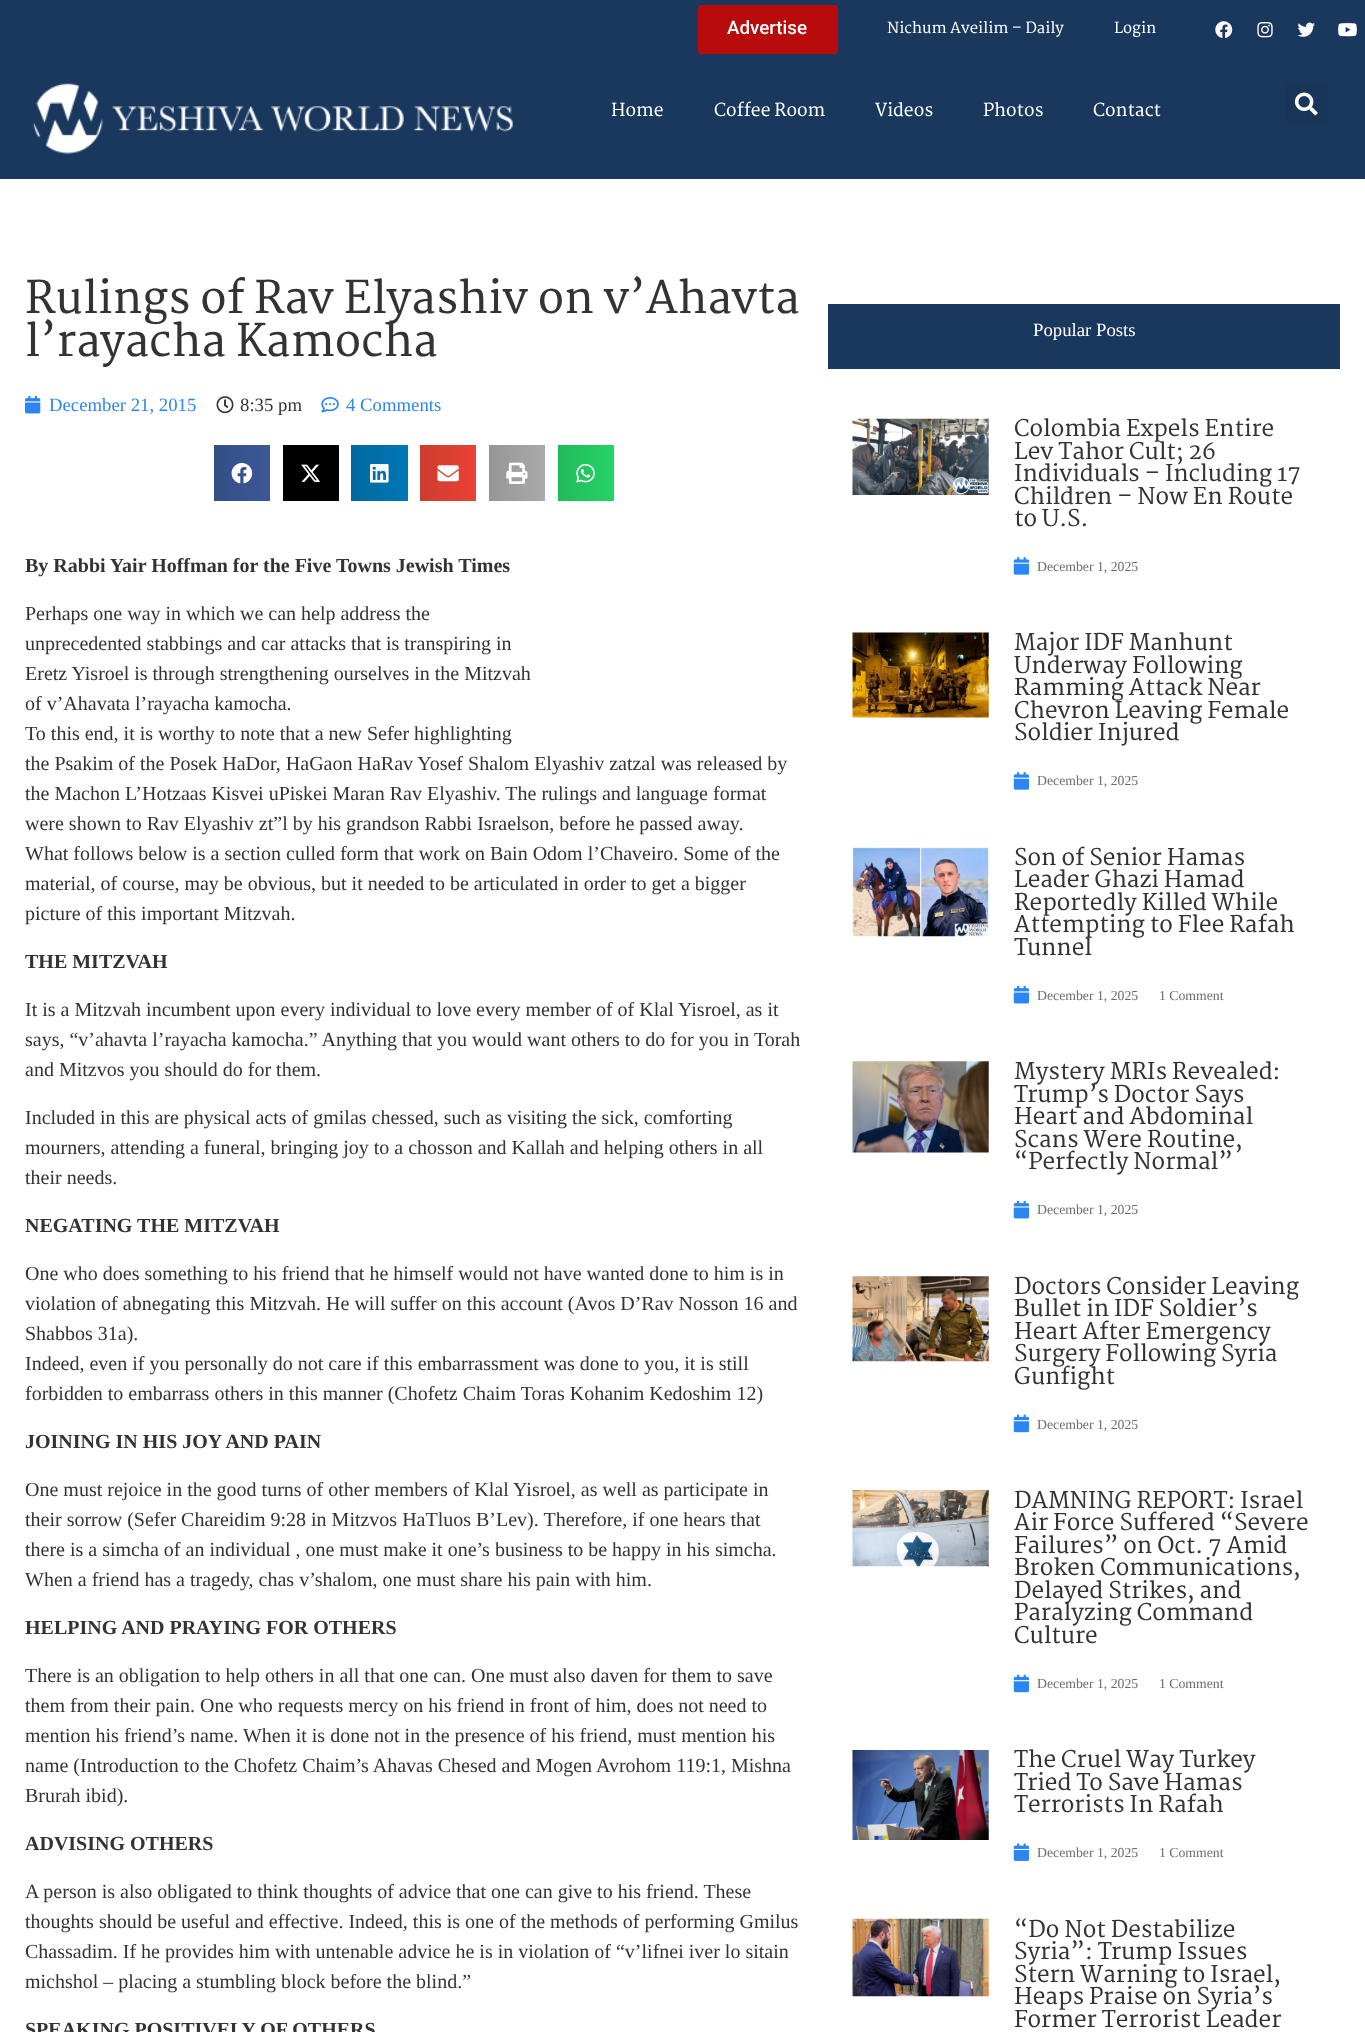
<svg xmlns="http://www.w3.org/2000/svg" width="1365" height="2032">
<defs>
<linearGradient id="g1" gradientUnits="userSpaceOnUse" x1="214" y1="473" x2="270" y2="473"><stop offset="0" stop-color="#344e86"/><stop offset="1" stop-color="#3b5998"/></linearGradient>
<linearGradient id="g2" gradientUnits="userSpaceOnUse" x1="351" y1="473" x2="408" y2="473"><stop offset="0" stop-color="#00699f"/><stop offset="1" stop-color="#0077b5"/></linearGradient>
<linearGradient id="g3" gradientUnits="userSpaceOnUse" x1="420" y1="473" x2="476" y2="473"><stop offset="0" stop-color="#ce3b2f"/><stop offset="1" stop-color="#ea4335"/></linearGradient>
<linearGradient id="g4" gradientUnits="userSpaceOnUse" x1="489" y1="473" x2="545" y2="473"><stop offset="0" stop-color="#969696"/><stop offset="1" stop-color="#aaa"/></linearGradient>
<linearGradient id="g5" gradientUnits="userSpaceOnUse" x1="558" y1="473" x2="614" y2="473"><stop offset="0" stop-color="#21ba5a"/><stop offset="1" stop-color="#25d366"/></linearGradient>
</defs>
<rect width="100%" height="100%" fill="#fff"/>
<rect width="1365" height="179" fill="#1a385d"/>
<rect x="698" y="5" width="140" height="49" rx="4" fill="#b80b0b"/>
<text x="727" y="34" style="font-family:Roboto;font-size:18.75px;font-weight:500;fill:#fff">Advertise</text>
<text x="887" y="33" style="font-family:Martel;font-size:15px;font-weight:600;fill:#fff">Nichum Aveilim – Daily</text>
<text x="1114" y="33" style="font-family:Martel;font-size:15px;font-weight:600;fill:#fff">Login</text>
<image x="1215" y="21" width="18" height="17" href="media/1.png"/>
<image x="1257" y="22" width="16" height="16" href="media/2.png"/>
<image x="1297" y="22" width="18" height="15" href="media/3.png"/>
<image x="1338" y="23" width="19" height="14" href="media/4.png"/>
<image x="33" y="83" width="481" height="71" href="media/5.png"/>
<text x="611" y="116" style="font-family:Martel;font-size:17.5px;font-weight:600;fill:#fff">Home</text>
<text x="714" y="116" style="font-family:Martel;font-size:17.5px;font-weight:600;fill:#fff">Coffee Room</text>
<text x="875" y="116" style="font-family:Martel;font-size:17.5px;font-weight:600;fill:#fff">Videos</text>
<text x="983" y="116" style="font-family:Martel;font-size:17.5px;font-weight:600;fill:#fff">Photos</text>
<text x="1093" y="116" style="font-family:Martel;font-size:17.5px;font-weight:600;fill:#fff">Contact</text>
<rect x="1286" y="83" width="42" height="41" rx="4" fill="#193558"/>
<image x="1294" y="92" width="24" height="24" href="media/6.png"/>
<text x="25" y="313" style="font-family:Martel;font-size:43.75px;font-weight:600;fill:#333">Rulings of Rav Elyashiv on v’Ahavta</text>
<text x="25" y="356" style="font-family:Martel;font-size:43.75px;font-weight:600;fill:#333">l’rayacha Kamocha</text>
<image x="25" y="395" width="16" height="19" href="media/7.png"/>
<text x="49" y="411" style="font-family:Liberation Serif;font-size:18.75px;fill:#2b85f4">December 21, 2015</text>
<image x="216" y="396" width="18" height="18" href="media/8.png"/>
<text x="240" y="411" style="font-family:Liberation Serif;font-size:18.75px;fill:#333">8:35 pm</text>
<image x="321" y="397" width="18" height="16" href="media/9.png"/>
<text x="346" y="411" style="font-family:Liberation Serif;font-size:18.75px;fill:#2b85f4">4 Comments</text>
<rect x="214" y="445" width="56" height="56" fill="url(#g1)"/>
<image x="231" y="463" width="22" height="21" href="media/10.png"/>
<rect x="283" y="445" width="56" height="56" fill="#000"/>
<image x="301" y="464" width="20" height="18" href="media/11.png"/>
<rect x="351" y="445" width="57" height="56" fill="url(#g2)"/>
<image x="370" y="464" width="19" height="19" href="media/12.png"/>
<rect x="420" y="445" width="56" height="56" fill="url(#g3)"/>
<image x="437" y="465" width="22" height="17" href="media/13.png"/>
<rect x="489" y="445" width="56" height="56" fill="url(#g4)"/>
<image x="506" y="462" width="22" height="22" href="media/14.png"/>
<rect x="558" y="445" width="56" height="56" fill="url(#g5)"/>
<image x="576" y="464" width="19" height="19" href="media/15.png"/>
<text x="25" y="572" style="font-family:Liberation Serif;font-size:20px;font-weight:bold;fill:#333">By Rabbi Yair Hoffman for the Five Towns Jewish Times</text>
<text x="25" y="620" style="font-family:Liberation Serif;font-size:20px;fill:#333">Perhaps one way in which we can help address the</text>
<text x="25" y="650" style="font-family:Liberation Serif;font-size:20px;fill:#333">unprecedented stabbings and car attacks that is transpiring in</text>
<text x="25" y="680" style="font-family:Liberation Serif;font-size:20px;fill:#333">Eretz Yisroel is through strengthening ourselves in the Mitzvah</text>
<text x="25" y="710" style="font-family:Liberation Serif;font-size:20px;fill:#333">of v’Ahavata l’rayacha kamocha.</text>
<text x="25" y="740" style="font-family:Liberation Serif;font-size:20px;fill:#333">To this end, it is worthy to note that a new Sefer highlighting</text>
<text x="25" y="770" style="font-family:Liberation Serif;font-size:20px;fill:#333">the Psakim of the Posek HaDor, HaGaon HaRav Yosef Shalom Elyashiv zatzal was released by</text>
<text x="25" y="800" style="font-family:Liberation Serif;font-size:20px;fill:#333">the Machon L’Hotzaas Kisvei uPiskei Maran Rav Elyashiv. The rulings and language format</text>
<text x="25" y="830" style="font-family:Liberation Serif;font-size:20px;fill:#333">were shown to Rav Elyashiv zt”l by his grandson Rabbi Israelson, before he passed away.</text>
<text x="25" y="860" style="font-family:Liberation Serif;font-size:20px;fill:#333">What follows below is a section culled form that work on Bain Odom l’Chaveiro. Some of the</text>
<text x="25" y="890" style="font-family:Liberation Serif;font-size:20px;fill:#333">material, of course, may be obvious, but it needed to be articulated in order to get a bigger</text>
<text x="25" y="920" style="font-family:Liberation Serif;font-size:20px;fill:#333">picture of this important Mitzvah.</text>
<text x="25" y="968" style="font-family:Liberation Serif;font-size:20px;font-weight:bold;fill:#333">THE MITZVAH</text>
<text x="25" y="1016" style="font-family:Liberation Serif;font-size:20px;fill:#333">It is a Mitzvah incumbent upon every individual to love every member of of Klal Yisroel, as it</text>
<text x="25" y="1046" style="font-family:Liberation Serif;font-size:20px;fill:#333">says, “v’ahavta l’rayacha kamocha.” Anything that you would want others to do for you in Torah</text>
<text x="25" y="1076" style="font-family:Liberation Serif;font-size:20px;fill:#333">and Mitzvos you should do for them.</text>
<text x="25" y="1124" style="font-family:Liberation Serif;font-size:20px;fill:#333">Included in this are physical acts of gmilas chessed, such as visiting the sick, comforting</text>
<text x="25" y="1154" style="font-family:Liberation Serif;font-size:20px;fill:#333">mourners, attending a funeral, bringing joy to a chosson and Kallah and helping others in all</text>
<text x="25" y="1184" style="font-family:Liberation Serif;font-size:20px;fill:#333">their needs.</text>
<text x="25" y="1232" style="font-family:Liberation Serif;font-size:20px;font-weight:bold;fill:#333">NEGATING THE MITZVAH</text>
<text x="25" y="1280" style="font-family:Liberation Serif;font-size:20px;fill:#333">One who does something to his friend that he himself would not have wanted done to him is in</text>
<text x="25" y="1310" style="font-family:Liberation Serif;font-size:20px;fill:#333">violation of abnegating this Mitzvah. He will suffer on this account (Avos D’Rav Nosson 16 and</text>
<text x="25" y="1340" style="font-family:Liberation Serif;font-size:20px;fill:#333">Shabbos 31a).</text>
<text x="25" y="1370" style="font-family:Liberation Serif;font-size:20px;fill:#333">Indeed, even if you personally do not care if this embarrassment was done to you, it is still</text>
<text x="25" y="1400" style="font-family:Liberation Serif;font-size:20px;fill:#333">forbidden to embarrass others in this manner (Chofetz Chaim Toras Kohanim Kedoshim 12)</text>
<text x="25" y="1448" style="font-family:Liberation Serif;font-size:20px;font-weight:bold;fill:#333">JOINING IN HIS JOY AND PAIN</text>
<text x="25" y="1496" style="font-family:Liberation Serif;font-size:20px;fill:#333">One must rejoice in the good turns of other members of Klal Yisroel, as well as participate in</text>
<text x="25" y="1526" style="font-family:Liberation Serif;font-size:20px;fill:#333">their sorrow (Sefer Chareidim 9:28 in Mitzvos HaTluos B’Lev). Therefore, if one hears that</text>
<text x="25" y="1556" style="font-family:Liberation Serif;font-size:20px;fill:#333">there is a simcha of an individual , one must make it one’s business to be happy in his simcha.</text>
<text x="25" y="1586" style="font-family:Liberation Serif;font-size:20px;fill:#333">When a friend has a tragedy, chas v’shalom, one must share his pain with him.</text>
<text x="25" y="1634" style="font-family:Liberation Serif;font-size:20px;font-weight:bold;fill:#333">HELPING AND PRAYING FOR OTHERS</text>
<text x="25" y="1682" style="font-family:Liberation Serif;font-size:20px;fill:#333">There is an obligation to help others in all that one can. One must also daven for them to save</text>
<text x="25" y="1712" style="font-family:Liberation Serif;font-size:20px;fill:#333">them from their pain. One who requests mercy on his friend in front of him, does not need to</text>
<text x="25" y="1742" style="font-family:Liberation Serif;font-size:20px;fill:#333">mention his friend’s name. When it is done not in the presence of his friend, must mention his</text>
<text x="25" y="1772" style="font-family:Liberation Serif;font-size:20px;fill:#333">name (Introduction to the Chofetz Chaim’s Ahavas Chesed and Mogen Avrohom 119:1, Mishna</text>
<text x="25" y="1802" style="font-family:Liberation Serif;font-size:20px;fill:#333">Brurah ibid).</text>
<text x="25" y="1850" style="font-family:Liberation Serif;font-size:20px;font-weight:bold;fill:#333">ADVISING OTHERS</text>
<text x="25" y="1898" style="font-family:Liberation Serif;font-size:20px;fill:#333">A person is also obligated to think thoughts of advice that one can give to his friend. These</text>
<text x="25" y="1928" style="font-family:Liberation Serif;font-size:20px;fill:#333">thoughts should be useful and effective. Indeed, this is one of the methods of performing Gmilus</text>
<text x="25" y="1958" style="font-family:Liberation Serif;font-size:20px;fill:#333">Chassadim. If he provides him with untenable advice he is in violation of “v’lifnei iver lo sitain</text>
<text x="25" y="1988" style="font-family:Liberation Serif;font-size:20px;fill:#333">michshol – placing a stumbling block before the blind.”</text>
<text x="25" y="2036" style="font-family:Liberation Serif;font-size:20px;font-weight:bold;fill:#333">SPEAKING POSITIVELY OF OTHERS</text>
<rect x="828" y="304" width="512" height="65" fill="#1a385d"/>
<text x="1033" y="336" style="font-family:Liberation Serif;font-size:18.75px;fill:#fff">Popular Posts</text>
<image x="852" y="418" width="137" height="77" href="media/16.png"/>
<text x="1014" y="436" style="font-family:Martel;font-size:22.5px;font-weight:600;fill:#333">Colombia Expels Entire</text>
<text x="1014" y="459" style="font-family:Martel;font-size:22.5px;font-weight:600;fill:#333">Lev Tahor Cult; 26</text>
<text x="1014" y="481" style="font-family:Martel;font-size:22.5px;font-weight:600;fill:#333">Individuals – Including 17</text>
<text x="1014" y="504" style="font-family:Martel;font-size:22.5px;font-weight:600;fill:#333">Children – Now En Route</text>
<text x="1014" y="526" style="font-family:Martel;font-size:22.5px;font-weight:600;fill:#333">to U.S.</text>
<image x="1013" y="557" width="17" height="18" href="media/17.png"/>
<text x="1037" y="571" style="font-family:Liberation Serif;font-size:13.75px;fill:#6b6b6b">December 1, 2025</text>
<image x="852" y="632" width="137" height="86" href="media/18.png"/>
<text x="1014" y="650" style="font-family:Martel;font-size:22.5px;font-weight:600;fill:#333">Major IDF Manhunt</text>
<text x="1014" y="673" style="font-family:Martel;font-size:22.5px;font-weight:600;fill:#333">Underway Following</text>
<text x="1014" y="695" style="font-family:Martel;font-size:22.5px;font-weight:600;fill:#333">Ramming Attack Near</text>
<text x="1014" y="718" style="font-family:Martel;font-size:22.5px;font-weight:600;fill:#333">Chevron Leaving Female</text>
<text x="1014" y="740" style="font-family:Martel;font-size:22.5px;font-weight:600;fill:#333">Soldier Injured</text>
<image x="1013" y="772" width="17" height="18" href="media/17.png"/>
<text x="1037" y="785" style="font-family:Liberation Serif;font-size:13.75px;fill:#6b6b6b">December 1, 2025</text>
<image x="852" y="847" width="137" height="90" href="media/19.png"/>
<text x="1014" y="865" style="font-family:Martel;font-size:22.5px;font-weight:600;fill:#333">Son of Senior Hamas</text>
<text x="1014" y="887" style="font-family:Martel;font-size:22.5px;font-weight:600;fill:#333">Leader Ghazi Hamad</text>
<text x="1014" y="910" style="font-family:Martel;font-size:22.5px;font-weight:600;fill:#333">Reportedly Killed While</text>
<text x="1014" y="932" style="font-family:Martel;font-size:22.5px;font-weight:600;fill:#333">Attempting to Flee Rafah</text>
<text x="1014" y="955" style="font-family:Martel;font-size:22.5px;font-weight:600;fill:#333">Tunnel</text>
<image x="1013" y="985" width="17" height="19" href="media/20.png"/>
<text x="1037" y="1000" style="font-family:Liberation Serif;font-size:13.75px;fill:#6b6b6b">December 1, 2025</text>
<text x="1159" y="1000" style="font-family:Liberation Serif;font-size:13.75px;fill:#6b6b6b">1 Comment</text>
<image x="852" y="1061" width="137" height="92" href="media/21.png"/>
<text x="1014" y="1079" style="font-family:Martel;font-size:22.5px;font-weight:600;fill:#333">Mystery MRIs Revealed:</text>
<text x="1014" y="1102" style="font-family:Martel;font-size:22.5px;font-weight:600;fill:#333">Trump’s Doctor Says</text>
<text x="1014" y="1124" style="font-family:Martel;font-size:22.5px;font-weight:600;fill:#333">Heart and Abdominal</text>
<text x="1014" y="1147" style="font-family:Martel;font-size:22.5px;font-weight:600;fill:#333">Scans Were Routine,</text>
<text x="1014" y="1169" style="font-family:Martel;font-size:22.5px;font-weight:600;fill:#333">“Perfectly Normal”</text>
<image x="1013" y="1200" width="17" height="19" href="media/20.png"/>
<text x="1037" y="1214" style="font-family:Liberation Serif;font-size:13.75px;fill:#6b6b6b">December 1, 2025</text>
<image x="852" y="1276" width="137" height="86" href="media/22.png"/>
<text x="1014" y="1294" style="font-family:Martel;font-size:22.5px;font-weight:600;fill:#333">Doctors Consider Leaving</text>
<text x="1014" y="1316" style="font-family:Martel;font-size:22.5px;font-weight:600;fill:#333">Bullet in IDF Soldier’s</text>
<text x="1014" y="1339" style="font-family:Martel;font-size:22.5px;font-weight:600;fill:#333">Heart After Emergency</text>
<text x="1014" y="1361" style="font-family:Martel;font-size:22.5px;font-weight:600;fill:#333">Surgery Following Syria</text>
<text x="1014" y="1384" style="font-family:Martel;font-size:22.5px;font-weight:600;fill:#333">Gunfight</text>
<image x="1013" y="1414" width="17" height="19" href="media/23.png"/>
<text x="1037" y="1429" style="font-family:Liberation Serif;font-size:13.75px;fill:#6b6b6b">December 1, 2025</text>
<image x="852" y="1490" width="137" height="77" href="media/24.png"/>
<text x="1014" y="1508" style="font-family:Martel;font-size:22.5px;font-weight:600;fill:#333">DAMNING REPORT: Israel</text>
<text x="1014" y="1530" style="font-family:Martel;font-size:22.5px;font-weight:600;fill:#333">Air Force Suffered “Severe</text>
<text x="1014" y="1553" style="font-family:Martel;font-size:22.5px;font-weight:600;fill:#333">Failures” on Oct. 7 Amid</text>
<text x="1014" y="1575" style="font-family:Martel;font-size:22.5px;font-weight:600;fill:#333">Broken Communications,</text>
<text x="1014" y="1598" style="font-family:Martel;font-size:22.5px;font-weight:600;fill:#333">Delayed Strikes, and</text>
<text x="1014" y="1620" style="font-family:Martel;font-size:22.5px;font-weight:600;fill:#333">Paralyzing Command</text>
<text x="1014" y="1643" style="font-family:Martel;font-size:22.5px;font-weight:600;fill:#333">Culture</text>
<image x="1013" y="1674" width="17" height="19" href="media/23.png"/>
<text x="1037" y="1688" style="font-family:Liberation Serif;font-size:13.75px;fill:#6b6b6b">December 1, 2025</text>
<text x="1159" y="1688" style="font-family:Liberation Serif;font-size:13.75px;fill:#6b6b6b">1 Comment</text>
<image x="852" y="1750" width="137" height="90" href="media/25.png"/>
<text x="1014" y="1767" style="font-family:Martel;font-size:22.5px;font-weight:600;fill:#333">The Cruel Way Turkey</text>
<text x="1014" y="1790" style="font-family:Martel;font-size:22.5px;font-weight:600;fill:#333">Tried To Save Hamas</text>
<text x="1014" y="1812" style="font-family:Martel;font-size:22.5px;font-weight:600;fill:#333">Terrorists In Rafah</text>
<image x="1013" y="1843" width="17" height="18" href="media/26.png"/>
<text x="1037" y="1857" style="font-family:Liberation Serif;font-size:13.75px;fill:#6b6b6b">December 1, 2025</text>
<text x="1159" y="1857" style="font-family:Liberation Serif;font-size:13.75px;fill:#6b6b6b">1 Comment</text>
<image x="852" y="1918" width="137" height="79" href="media/27.png"/>
<text x="1014" y="1937" style="font-family:Martel;font-size:22.5px;font-weight:600;fill:#333">“Do Not Destabilize</text>
<text x="1014" y="1959" style="font-family:Martel;font-size:22.5px;font-weight:600;fill:#333">Syria”: Trump Issues</text>
<text x="1014" y="1982" style="font-family:Martel;font-size:22.5px;font-weight:600;fill:#333">Stern Warning to Israel,</text>
<text x="1014" y="2004" style="font-family:Martel;font-size:22.5px;font-weight:600;fill:#333">Heaps Praise on Syria’s</text>
<text x="1014" y="2027" style="font-family:Martel;font-size:22.5px;font-weight:600;fill:#333">Former Terrorist Leader</text>
</svg>
